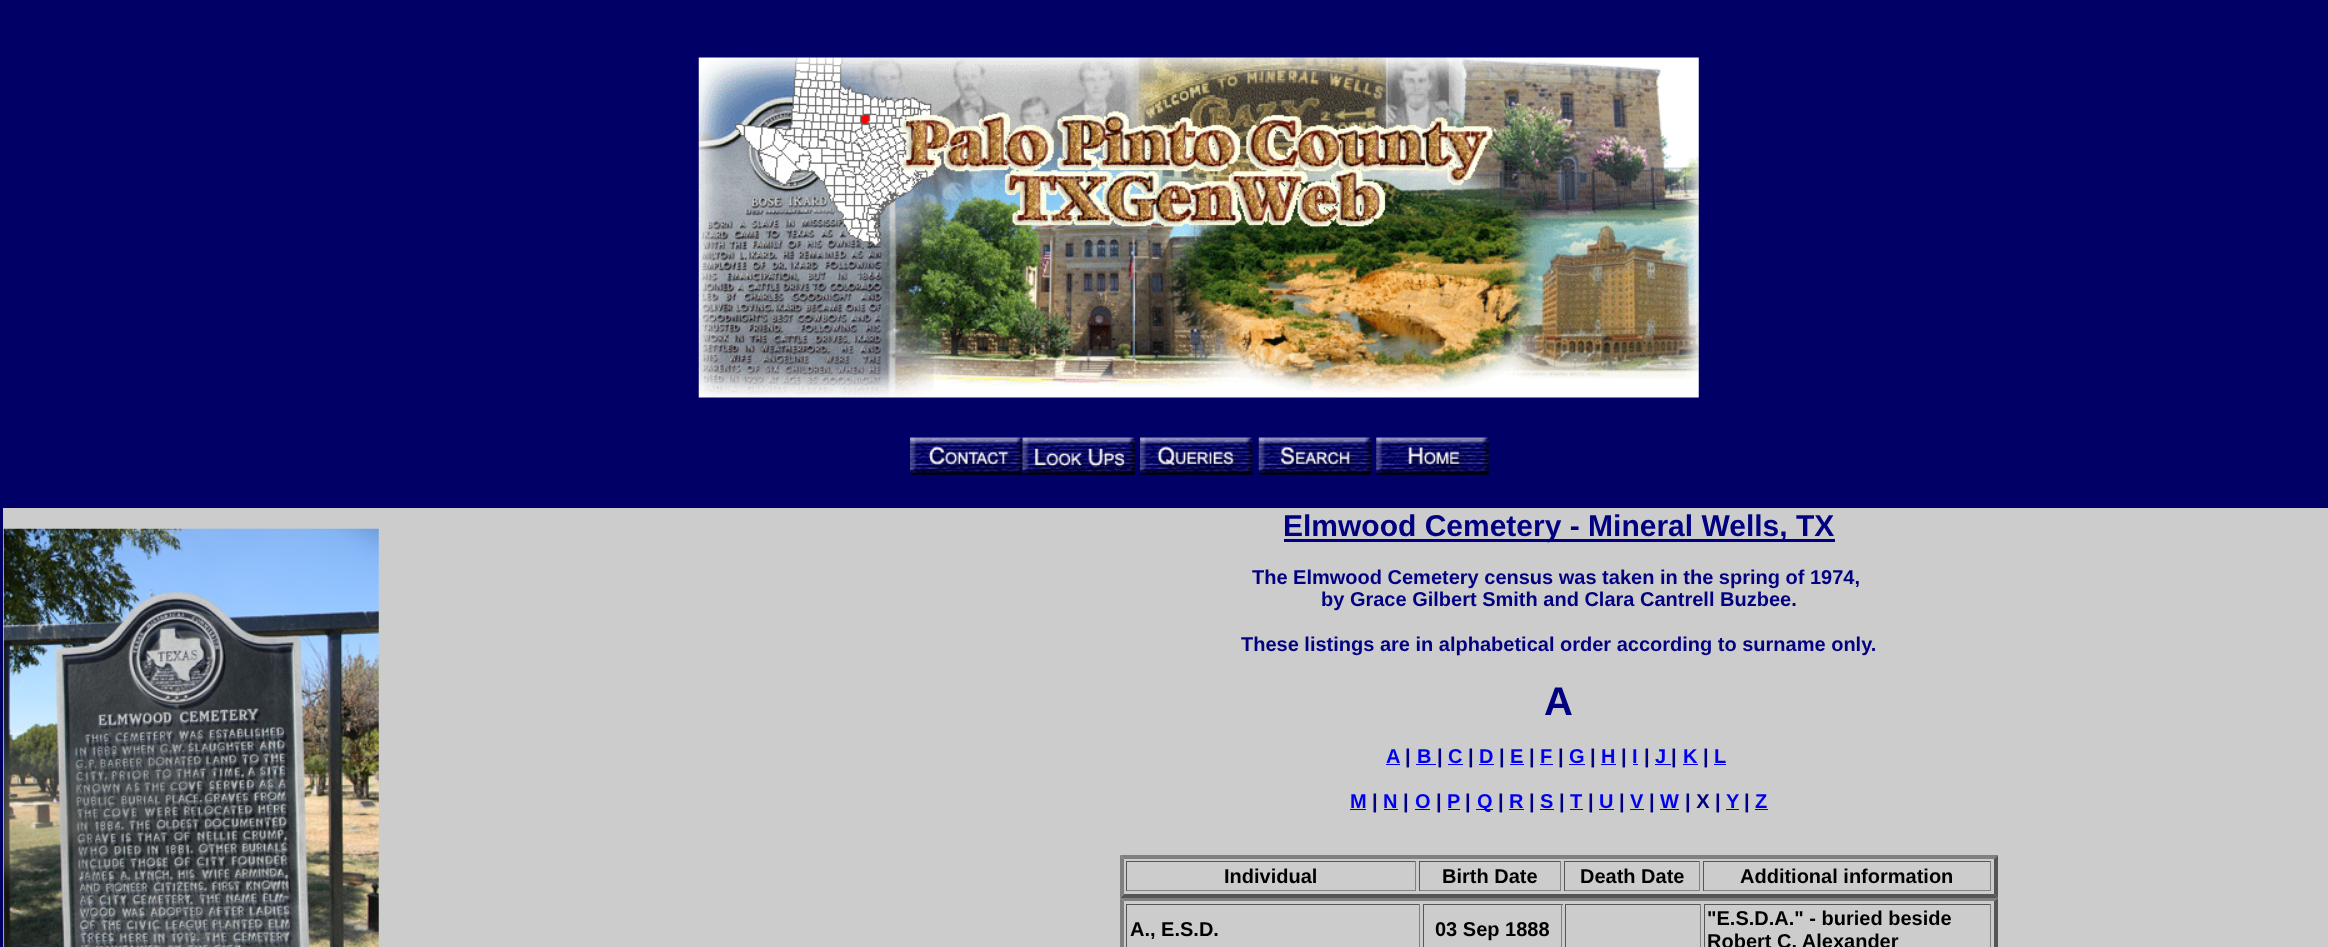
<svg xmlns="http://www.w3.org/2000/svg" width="2328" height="947">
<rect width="100%" height="100%" fill="#006"/>
<image x="698" y="57" width="1001" height="341" href="media/1.png"/>
<image x="910" y="437" width="113" height="38" href="media/2.png"/>
<image x="1022" y="437" width="113" height="38" href="media/3.png"/>
<image x="1140" y="437" width="113" height="38" href="media/4.png"/>
<image x="1258" y="437" width="114" height="38" href="media/5.png"/>
<image x="1376" y="437" width="113" height="38" href="media/6.png"/>
<rect x="3" y="508" width="2325" height="439" fill="#ccc"/>
<image x="3" y="528" width="376" height="419" href="media/7.png"/>
<rect x="1284" y="539" width="551" height="3" fill="#000080"/>
<text x="1283" y="536" style="font-family:Liberation Sans;font-size:30px;font-weight:bold;fill:#000080">Elmwood Cemetery - Mineral Wells, TX</text>
<text x="1252" y="584" style="font-family:Liberation Sans;font-size:20px;font-weight:bold;fill:#000080">The Elmwood Cemetery census was taken in the spring of 1974,</text>
<text x="1321" y="606" style="font-family:Liberation Sans;font-size:20px;font-weight:bold;fill:#000080">by Grace Gilbert Smith and Clara Cantrell Buzbee.</text>
<text x="1241" y="651" style="font-family:Liberation Sans;font-size:20px;font-weight:bold;fill:#000080">These listings are in alphabetical order according to surname only.</text>
<text x="1544" y="715" style="font-family:Liberation Sans;font-size:40px;font-weight:bold;fill:#000080">A</text>
<text x="1386" y="763" style="font-family:Liberation Sans;font-size:20px;font-weight:bold;fill:#00e">A</text>
<rect x="1386" y="764" width="14" height="1" fill="#00e"/>
<text x="1405" y="763" style="font-family:Liberation Sans;font-size:20px;font-weight:bold;fill:#000080">|</text>
<text x="1417" y="763" style="font-family:Liberation Sans;font-size:20px;font-weight:bold;fill:#00e">B</text>
<text x="1437" y="763" style="font-family:Liberation Sans;font-size:20px;font-weight:bold;fill:#000080">|</text>
<rect x="1416" y="764" width="20" height="1" fill="#00e"/>
<text x="1448" y="763" style="font-family:Liberation Sans;font-size:20px;font-weight:bold;fill:#00e">C</text>
<rect x="1448" y="764" width="15" height="1" fill="#00e"/>
<text x="1468" y="763" style="font-family:Liberation Sans;font-size:20px;font-weight:bold;fill:#000080">|</text>
<text x="1479" y="763" style="font-family:Liberation Sans;font-size:20px;font-weight:bold;fill:#00e">D</text>
<rect x="1479" y="764" width="15" height="1" fill="#00e"/>
<text x="1499" y="763" style="font-family:Liberation Sans;font-size:20px;font-weight:bold;fill:#000080">|</text>
<text x="1510" y="763" style="font-family:Liberation Sans;font-size:20px;font-weight:bold;fill:#00e">E</text>
<rect x="1510" y="764" width="14" height="1" fill="#00e"/>
<text x="1529" y="763" style="font-family:Liberation Sans;font-size:20px;font-weight:bold;fill:#000080">|</text>
<text x="1540" y="763" style="font-family:Liberation Sans;font-size:20px;font-weight:bold;fill:#00e">F</text>
<rect x="1540" y="764" width="13" height="1" fill="#00e"/>
<text x="1558" y="763" style="font-family:Liberation Sans;font-size:20px;font-weight:bold;fill:#000080">|</text>
<text x="1569" y="763" style="font-family:Liberation Sans;font-size:20px;font-weight:bold;fill:#00e">G</text>
<rect x="1569" y="764" width="16" height="1" fill="#00e"/>
<text x="1590" y="763" style="font-family:Liberation Sans;font-size:20px;font-weight:bold;fill:#000080">|</text>
<text x="1601" y="763" style="font-family:Liberation Sans;font-size:20px;font-weight:bold;fill:#00e">H</text>
<rect x="1601" y="764" width="15" height="1" fill="#00e"/>
<text x="1621" y="763" style="font-family:Liberation Sans;font-size:20px;font-weight:bold;fill:#000080">|</text>
<text x="1632" y="763" style="font-family:Liberation Sans;font-size:20px;font-weight:bold;fill:#00e">I</text>
<rect x="1633" y="764" width="5" height="1" fill="#00e"/>
<text x="1644" y="763" style="font-family:Liberation Sans;font-size:20px;font-weight:bold;fill:#000080">|</text>
<text x="1655" y="763" style="font-family:Liberation Sans;font-size:20px;font-weight:bold;fill:#00e">J</text>
<text x="1671" y="763" style="font-family:Liberation Sans;font-size:20px;font-weight:bold;fill:#000080">|</text>
<rect x="1655" y="764" width="16" height="1" fill="#00e"/>
<text x="1683" y="763" style="font-family:Liberation Sans;font-size:20px;font-weight:bold;fill:#00e">K</text>
<rect x="1683" y="764" width="15" height="1" fill="#00e"/>
<text x="1703" y="763" style="font-family:Liberation Sans;font-size:20px;font-weight:bold;fill:#000080">|</text>
<text x="1714" y="763" style="font-family:Liberation Sans;font-size:20px;font-weight:bold;fill:#00e">L</text>
<rect x="1714" y="764" width="12" height="1" fill="#00e"/>
<text x="1350" y="808" style="font-family:Liberation Sans;font-size:20px;font-weight:bold;fill:#00e">M</text>
<rect x="1350" y="809" width="16" height="1" fill="#00e"/>
<text x="1372" y="808" style="font-family:Liberation Sans;font-size:20px;font-weight:bold;fill:#000080">|</text>
<text x="1383" y="808" style="font-family:Liberation Sans;font-size:20px;font-weight:bold;fill:#00e">N</text>
<rect x="1384" y="809" width="14" height="1" fill="#00e"/>
<text x="1403" y="808" style="font-family:Liberation Sans;font-size:20px;font-weight:bold;fill:#000080">|</text>
<text x="1415" y="808" style="font-family:Liberation Sans;font-size:20px;font-weight:bold;fill:#00e">O</text>
<rect x="1415" y="809" width="15" height="1" fill="#00e"/>
<text x="1436" y="808" style="font-family:Liberation Sans;font-size:20px;font-weight:bold;fill:#000080">|</text>
<text x="1447" y="808" style="font-family:Liberation Sans;font-size:20px;font-weight:bold;fill:#00e">P</text>
<rect x="1448" y="809" width="12" height="1" fill="#00e"/>
<text x="1465" y="808" style="font-family:Liberation Sans;font-size:20px;font-weight:bold;fill:#000080">|</text>
<rect x="1476" y="809" width="17" height="1" fill="#00e"/>
<text x="1477" y="808" style="font-family:Liberation Sans;font-size:20px;font-weight:bold;fill:#00e">Q</text>
<text x="1498" y="808" style="font-family:Liberation Sans;font-size:20px;font-weight:bold;fill:#000080">|</text>
<text x="1509" y="808" style="font-family:Liberation Sans;font-size:20px;font-weight:bold;fill:#00e">R</text>
<rect x="1509" y="809" width="15" height="1" fill="#00e"/>
<text x="1529" y="808" style="font-family:Liberation Sans;font-size:20px;font-weight:bold;fill:#000080">|</text>
<text x="1540" y="808" style="font-family:Liberation Sans;font-size:20px;font-weight:bold;fill:#00e">S</text>
<rect x="1540" y="809" width="14" height="1" fill="#00e"/>
<text x="1559" y="808" style="font-family:Liberation Sans;font-size:20px;font-weight:bold;fill:#000080">|</text>
<text x="1570" y="808" style="font-family:Liberation Sans;font-size:20px;font-weight:bold;fill:#00e">T</text>
<rect x="1570" y="809" width="13" height="1" fill="#00e"/>
<text x="1588" y="808" style="font-family:Liberation Sans;font-size:20px;font-weight:bold;fill:#000080">|</text>
<text x="1599" y="808" style="font-family:Liberation Sans;font-size:20px;font-weight:bold;fill:#00e">U</text>
<rect x="1599" y="809" width="15" height="1" fill="#00e"/>
<text x="1619" y="808" style="font-family:Liberation Sans;font-size:20px;font-weight:bold;fill:#000080">|</text>
<text x="1630" y="808" style="font-family:Liberation Sans;font-size:20px;font-weight:bold;fill:#00e">V</text>
<rect x="1630" y="809" width="14" height="1" fill="#00e"/>
<text x="1649" y="808" style="font-family:Liberation Sans;font-size:20px;font-weight:bold;fill:#000080">|</text>
<text x="1660" y="808" style="font-family:Liberation Sans;font-size:20px;font-weight:bold;fill:#00e">W</text>
<rect x="1660" y="809" width="19" height="1" fill="#00e"/>
<text x="1685" y="808" style="font-family:Liberation Sans;font-size:20px;font-weight:bold;fill:#000080">| X |</text>
<text x="1726" y="808" style="font-family:Liberation Sans;font-size:20px;font-weight:bold;fill:#00e">Y</text>
<rect x="1726" y="809" width="13" height="1" fill="#00e"/>
<text x="1744" y="808" style="font-family:Liberation Sans;font-size:20px;font-weight:bold;fill:#000080">|</text>
<text x="1755" y="808" style="font-family:Liberation Sans;font-size:20px;font-weight:bold;fill:#00e">Z</text>
<rect x="1755" y="809" width="13" height="1" fill="#00e"/>
<path d="M1120 855h878l-4 4h-870z" fill="#808080"/>
<path d="M1998 855v43l-4-4v-35z" fill="#555"/>
<path d="M1998 898h-878l4-4h870z" fill="#555"/>
<path d="M1120 898v-43l4 4v35z" fill="#808080"/>
<rect x="1126" y="861" width="290" height="1" fill="#555"/>
<rect x="1415" y="861" width="1" height="30" fill="#808080"/>
<rect x="1126" y="890" width="290" height="1" fill="#808080"/>
<rect x="1126" y="861" width="1" height="30" fill="#555"/>
<text x="1224" y="883" style="font-family:Liberation Sans;font-size:20px;font-weight:bold;fill:#000">Individual</text>
<rect x="1419" y="861" width="142" height="1" fill="#555"/>
<rect x="1560" y="861" width="1" height="30" fill="#808080"/>
<rect x="1419" y="890" width="142" height="1" fill="#808080"/>
<rect x="1419" y="861" width="1" height="30" fill="#555"/>
<text x="1442" y="883" style="font-family:Liberation Sans;font-size:20px;font-weight:bold;fill:#000">Birth Date</text>
<rect x="1564" y="861" width="136" height="1" fill="#555"/>
<rect x="1699" y="861" width="1" height="30" fill="#808080"/>
<rect x="1564" y="890" width="136" height="1" fill="#808080"/>
<rect x="1564" y="861" width="1" height="30" fill="#555"/>
<text x="1580" y="883" style="font-family:Liberation Sans;font-size:20px;font-weight:bold;fill:#000">Death Date</text>
<rect x="1703" y="861" width="288" height="1" fill="#555"/>
<rect x="1990" y="861" width="1" height="30" fill="#808080"/>
<rect x="1703" y="890" width="288" height="1" fill="#808080"/>
<rect x="1703" y="861" width="1" height="30" fill="#555"/>
<text x="1740" y="883" style="font-family:Liberation Sans;font-size:20px;font-weight:bold;fill:#000">Additional information</text>
<path d="M1120 898h878l-4 3h-870z" fill="#808080"/>
<path d="M1998 898v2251l-4-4v-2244z" fill="#555"/>
<path d="M1120 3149v-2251l4 3v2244z" fill="#808080"/>
<rect x="1126" y="904" width="294" height="1" fill="#555"/>
<rect x="1419" y="904" width="1" height="43" fill="#808080"/>
<rect x="1126" y="904" width="1" height="43" fill="#555"/>
<text x="1130" y="936" style="font-family:Liberation Sans;font-size:20px;font-weight:bold;fill:#000">A., E.S.D.</text>
<rect x="1423" y="904" width="140" height="1" fill="#555"/>
<rect x="1561" y="904" width="1" height="43" fill="#808080"/>
<rect x="1423" y="904" width="1" height="43" fill="#555"/>
<text x="1435" y="936" style="font-family:Liberation Sans;font-size:20px;font-weight:bold;fill:#000">03 Sep 1888</text>
<rect x="1565" y="904" width="136" height="1" fill="#555"/>
<rect x="1700" y="904" width="1" height="43" fill="#808080"/>
<rect x="1565" y="904" width="1" height="43" fill="#555"/>
<rect x="1704" y="904" width="287" height="1" fill="#555"/>
<rect x="1990" y="904" width="1" height="43" fill="#808080"/>
<rect x="1704" y="904" width="1" height="43" fill="#555"/>
<text x="1707" y="925" style="font-family:Liberation Sans;font-size:20px;font-weight:bold;fill:#000">"E.S.D.A." - buried beside</text>
<text x="1707" y="948" style="font-family:Liberation Sans;font-size:20px;font-weight:bold;fill:#000">Robert C. Alexander</text>
</svg>
